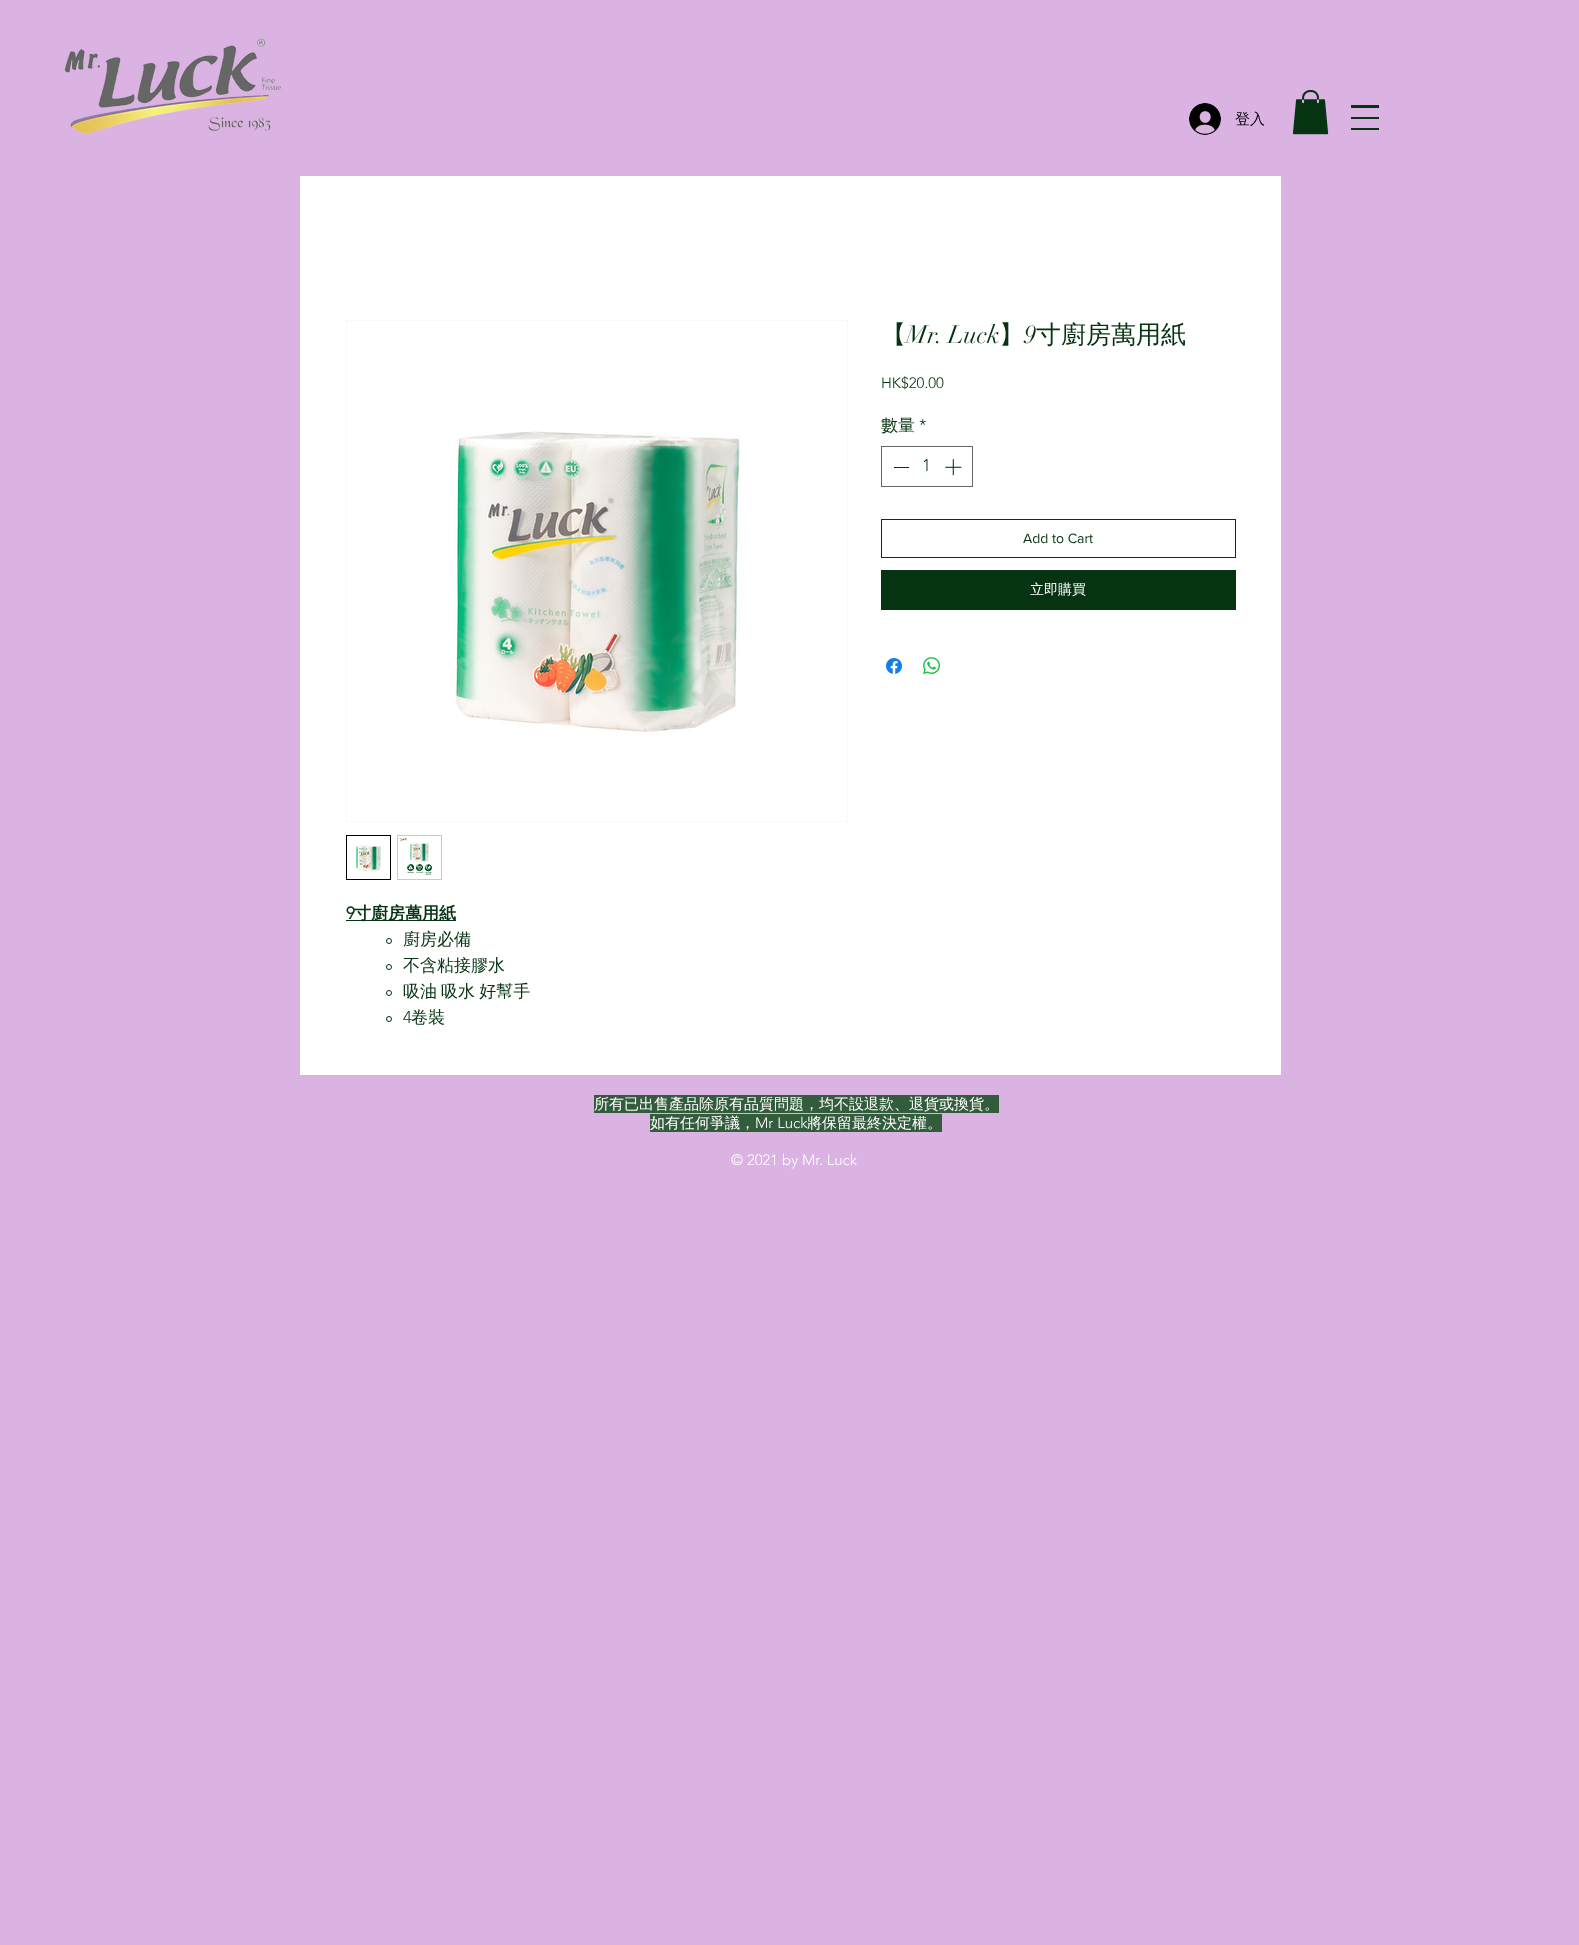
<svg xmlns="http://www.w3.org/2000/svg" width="1579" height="1945">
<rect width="100%" height="100%" fill="#dbb3e3"/>
<image x="64" y="38" width="217" height="96" href="media/1.png"/>
<image x="1189" y="103" width="32" height="32" href="media/2.png"/>
<text x="1235" y="124" style="font-family:WenQuanYi Zen Hei;font-size:15px;font-weight:500;fill:#000">登入</text>
<image x="1292" y="90" width="37" height="45" href="media/3.png"/>
<rect x="1351" y="105" width="28" height="3" fill="#063311"/>
<rect x="1351" y="117" width="28" height="2" fill="#063311"/>
<rect x="1351" y="128" width="28" height="2" fill="#063311"/>
<rect x="300" y="176" width="981" height="899" fill="#fff"/>
<text x="881" y="343" style="font-family:WenQuanYi Zen Hei;font-size:25px;font-weight:500;fill:#063311">【</text>
<text x="906" y="343" style="font-family:didot;font-size:25px;fill:#063311">Mr. Luck</text>
<text x="999" y="343" style="font-family:WenQuanYi Zen Hei;font-size:25px;font-weight:500;fill:#063311">】</text>
<text x="1024" y="343" style="font-family:didot;font-size:25px;fill:#063311">9</text>
<text x="1036" y="343" style="font-family:WenQuanYi Zen Hei;font-size:25px;font-weight:500;fill:#063311">寸廚房萬用紙</text>
<text x="881" y="388" style="font-family:'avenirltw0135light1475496';font-size:15px;font-weight:300;fill:#063311">HK$20.00</text>
<text x="881" y="431" style="font-family:WenQuanYi Zen Hei;font-size:17px;font-weight:500;fill:#063311">數量</text>
<text x="919" y="431" style="font-family:'avenirltw0135light1475496';font-size:17px;font-weight:300;fill:#063311">*</text>
<rect x="881.5" y="446.5" width="91" height="40" fill="none" stroke="#666"/>
<rect x="894" y="467" width="15" height="1" fill="#063311"/>
<text x="922" y="471" style="font-family:'avenirltw0135light1475496';font-size:17px;font-weight:300;fill:#063311">1</text>
<image x="945" y="459" width="17" height="17" href="media/4.png"/>
<rect x="881.5" y="519.5" width="354" height="38" fill="none" stroke="#063311"/>
<text x="1023" y="543" style="font-family:'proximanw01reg';font-size:14px;fill:#063311">Add to Cart</text>
<rect x="881" y="570" width="355" height="40" fill="#063311"/>
<text x="1030" y="594" style="font-family:WenQuanYi Zen Hei;font-size:14px;font-weight:500;fill:#fff">立即購買</text>
<image x="886" y="658" width="16" height="16" href="media/5.png"/>
<image x="923" y="657" width="17" height="17" href="media/6.png"/>
<rect x="346.5" y="320.5" width="501" height="501" fill="none" stroke="#f9f9f9"/>
<image x="455" y="431" width="286" height="301" href="media/7.png"/>
<rect x="346.5" y="835.5" width="44" height="44" fill="none" stroke="#000"/>
<image x="356" y="845" width="25" height="27" href="media/8.png"/>
<rect x="397.5" y="835.5" width="44" height="44" fill="none" stroke="#c9c9c9"/>
<image x="399" y="838" width="33" height="37" href="media/9.png"/>
<text x="346" y="919" style="font-family:'avenirltw0135light1475496';font-size:17px;font-weight:bold;fill:#063311">9</text>
<rect x="346" y="920" width="110" height="1" fill="#063311"/>
<text x="354" y="919" style="font-family:WenQuanYi Zen Hei;font-size:17px;font-weight:bold;fill:#063311">寸廚房萬用紙</text>
<circle cx="389" cy="941" r="2.5" fill="none" stroke="#063311"/>
<text x="403" y="945" style="font-family:WenQuanYi Zen Hei;font-size:17px;font-weight:500;fill:#063311">廚房必備</text>
<circle cx="389" cy="967" r="2.5" fill="none" stroke="#063311"/>
<text x="403" y="971" style="font-family:WenQuanYi Zen Hei;font-size:17px;font-weight:500;fill:#063311">不含粘接膠水</text>
<circle cx="389" cy="993" r="2.5" fill="none" stroke="#063311"/>
<text x="403" y="997" word-spacing="-1" style="font-family:WenQuanYi Zen Hei;font-size:17px;font-weight:500;fill:#063311">吸油 吸水 好幫手</text>
<circle cx="389" cy="1019" r="2.5" fill="none" stroke="#063311"/>
<text x="403" y="1023" style="font-family:'avenirltw0135light1475496';font-size:17px;font-weight:300;fill:#063311">4</text>
<text x="411" y="1023" style="font-family:WenQuanYi Zen Hei;font-size:17px;font-weight:500;fill:#063311">卷裝</text>
<rect x="594" y="1095" width="405" height="18" fill="#335c3d"/>
<text x="594" y="1109" style="font-family:WenQuanYi Zen Hei;font-size:15px;font-weight:500;fill:#fff">所有已出售產品除原有品質問題，均不設退款、退貨或換貨。</text>
<rect x="650" y="1114" width="292" height="18" fill="#335c3d"/>
<text x="650" y="1128" style="font-family:WenQuanYi Zen Hei;font-size:15px;font-weight:500;fill:#fff">如有任何爭議，</text>
<text x="755" y="1128" style="font-family:'avenirltw0135light1475496';font-size:15px;font-weight:300;fill:#fff">Mr Luck</text>
<text x="807" y="1128" style="font-family:WenQuanYi Zen Hei;font-size:15px;font-weight:500;fill:#fff">將保留最終決定權。</text>
<text x="731" y="1165" style="font-family:'avenirltw0135light1475496';font-size:15px;font-weight:300;fill:#fff">© 2021 by Mr. Luck</text>
</svg>
